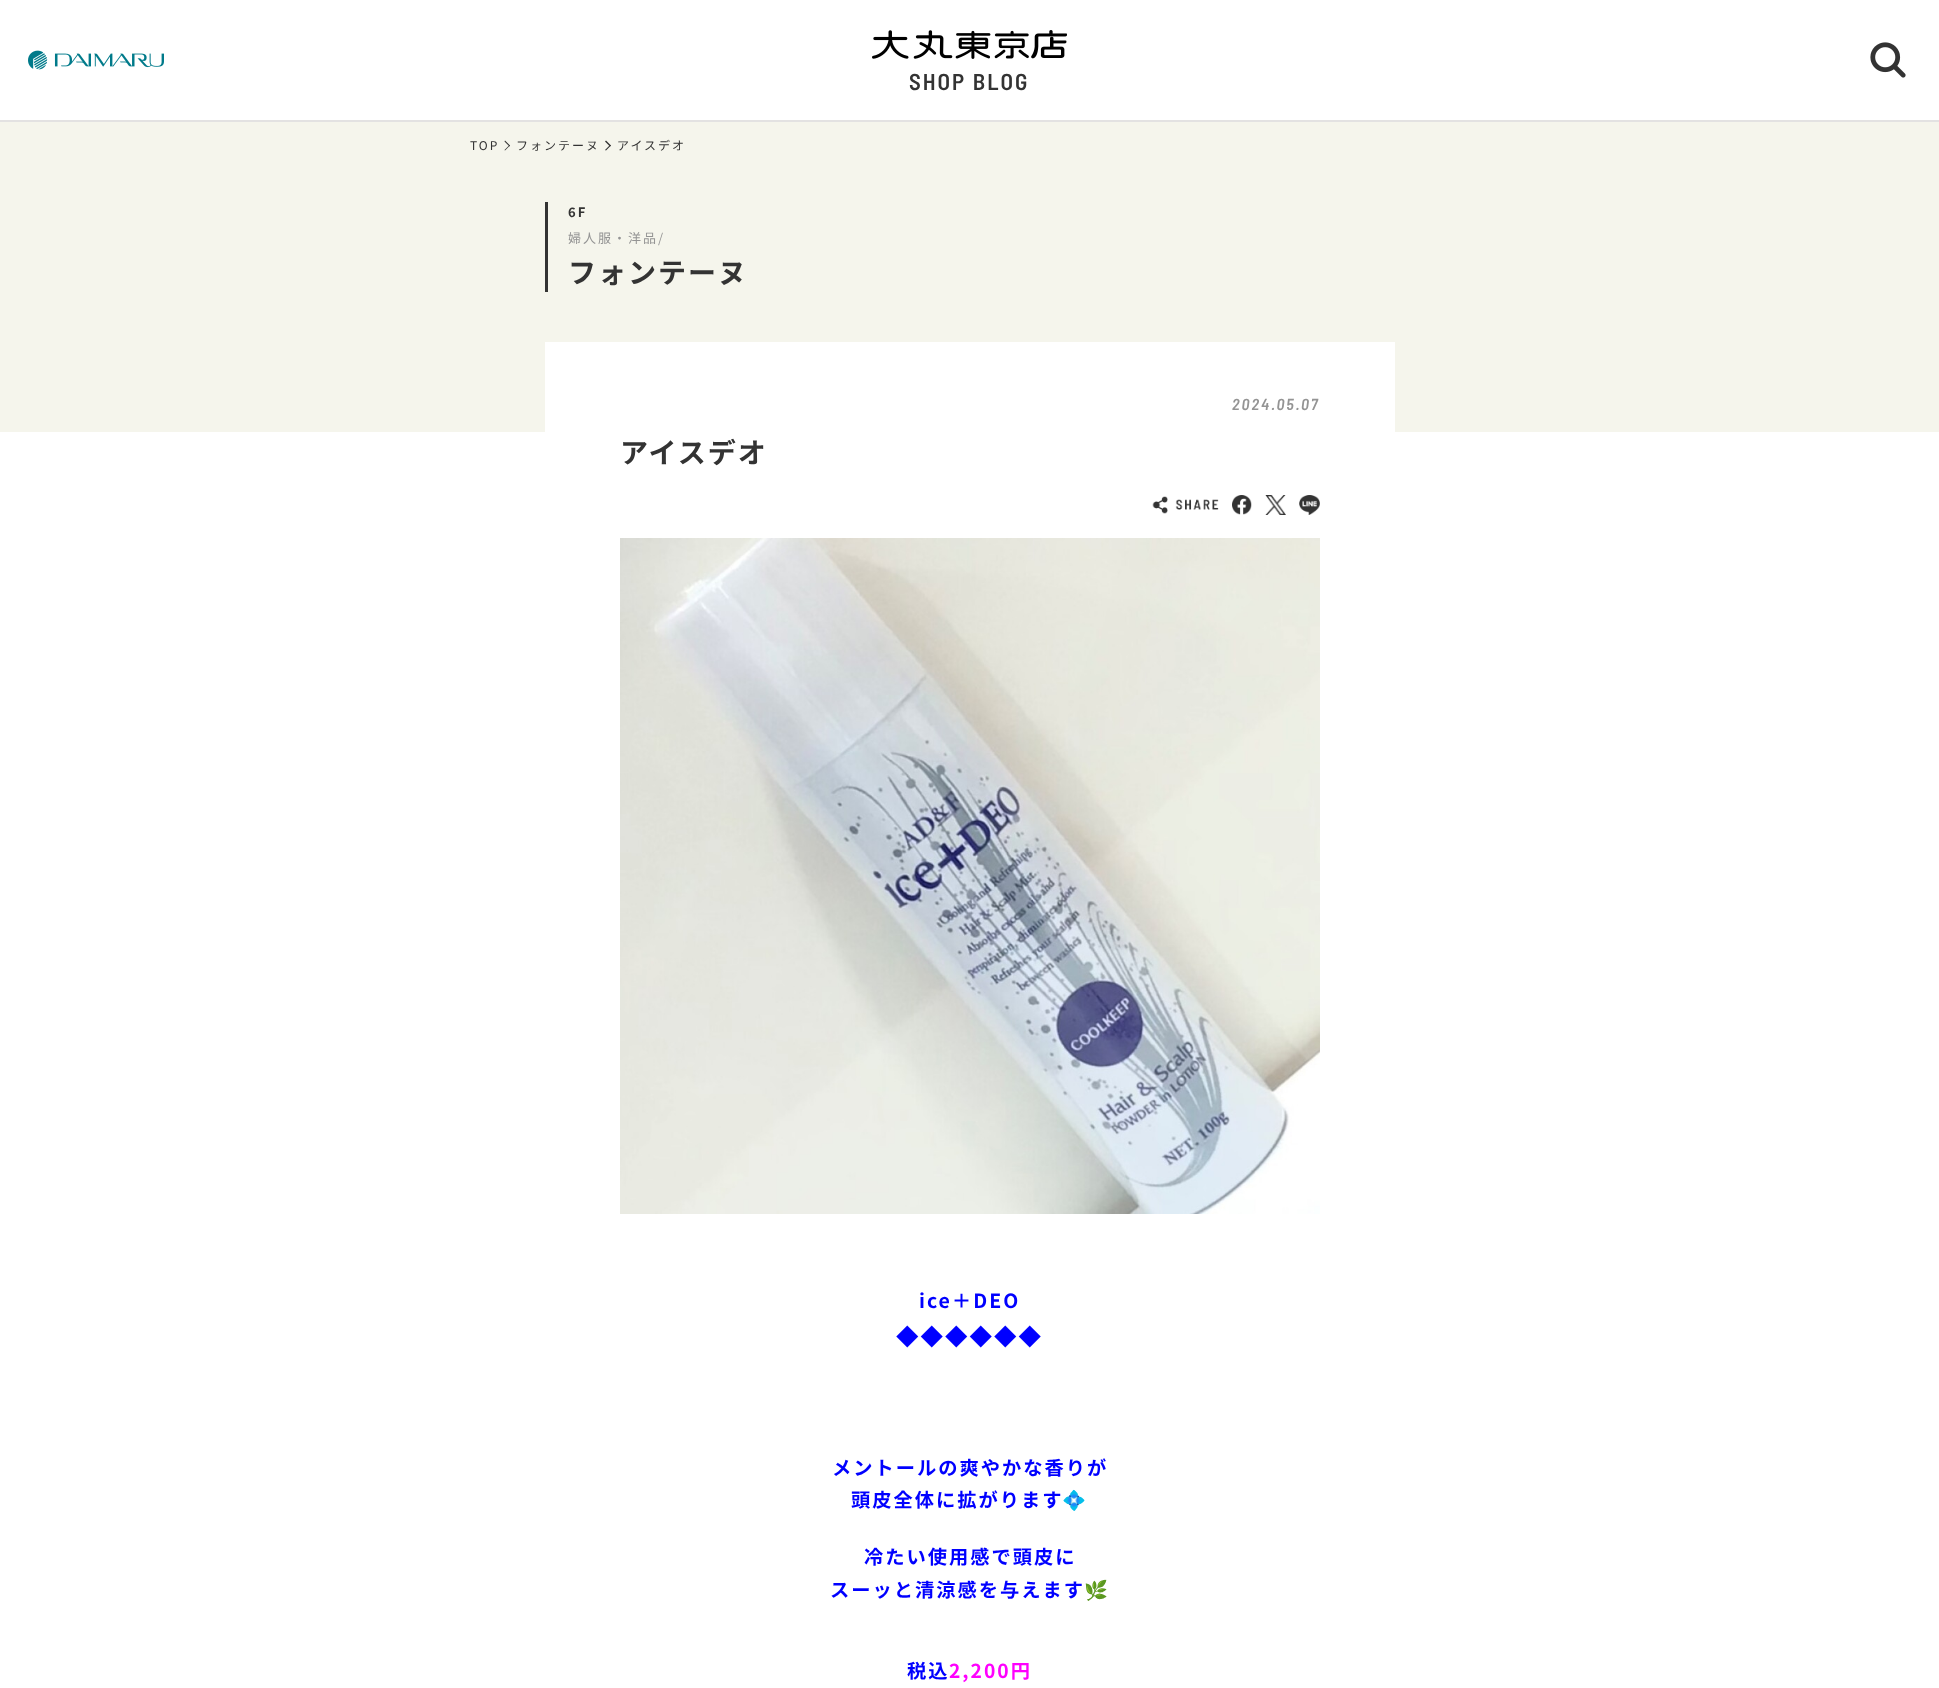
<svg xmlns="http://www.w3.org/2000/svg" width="1939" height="1688">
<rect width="100%" height="100%" fill="#fff"/>
<rect y="120" width="1939" height="2" fill="#e3e2e2"/>
<image x="28" y="50" width="136" height="20" href="media/1.png"/>
<image x="1870" y="42" width="36" height="36" href="media/2.png"/>
<image x="872" y="30" width="195" height="29" href="media/3.png"/>
<text x="909" y="90" style="font-family:Barlow Semi Condensed;font-size:23px;font-weight:600;letter-spacing:2px;fill:#333">SHOP BLOG</text>
<rect y="122" width="1939" height="310" fill="#f5f5ec"/>
<text x="470" y="150" style="font-family:Noto Sans JP;font-size:12px;letter-spacing:2px;fill:#333">TOP</text>
<path d="M505 140.5l5 5l-.5 1l-5-5z" fill="#333"/>
<path d="M509.5 145l.5 .5l-5 5l-.5-.5z" fill="#333"/>
<text x="516" y="150" style="font-family:Noto Sans JP;font-size:12px;letter-spacing:2px;fill:#333">フォンテーヌ</text>
<path d="M606 140.5l5 5l-1 1l-5-5z" fill="#333"/>
<path d="M610 145l1 .5l-5 5l-1-.5z" fill="#333"/>
<text x="617" y="150" style="font-family:Noto Sans JP;font-size:12px;letter-spacing:2px;fill:#333">アイスデオ</text>
<rect x="545" y="202" width="3" height="90" fill="#333"/>
<text x="568" y="217" style="font-family:Noto Sans JP;font-size:13px;font-weight:bold;letter-spacing:2px;fill:#333">6F</text>
<text x="568" y="243" style="font-family:Noto Sans JP;font-size:13px;letter-spacing:2px;fill:#949494">婦人服・洋品/</text>
<text x="568" y="283" style="font-family:Noto Sans JP;font-size:28px;font-weight:bold;letter-spacing:2px;fill:#333">フォンテーヌ</text>
<rect x="545" y="342" width="850" height="90" fill="#fff"/>
<text x="1232" y="410" style="font-family:Barlow Semi Condensed;font-size:16px;font-weight:600;font-style:italic;letter-spacing:2px;fill:#949494">2024.05.07</text>
<text x="620" y="463" style="font-family:Noto Sans JP;font-size:28px;font-weight:bold;letter-spacing:2px;fill:#333">アイスデオ</text>
<image x="1152" y="496" width="67" height="18" href="media/4.png"/>
<image x="1232" y="495" width="20" height="20" href="media/5.png"/>
<image x="1265" y="495" width="21" height="20" href="media/6.png"/>
<image x="1299" y="495" width="21" height="20" href="media/7.png"/>
<image x="620" y="538" width="700" height="676" href="media/8.png"/>
<text x="919" y="1308" style="font-family:Noto Sans JP;font-size:19.5px;font-weight:bold;letter-spacing:2px;fill:#00f">ice＋DEO</text>
<text x="896" y="1345" style="font-family:Noto Sans JP;font-size:22.5px;font-weight:bold;letter-spacing:2px;fill:#00f">◆◆◆◆◆◆</text>
<text x="832" y="1475" style="font-family:Noto Sans JP;font-size:19.25px;font-weight:bold;letter-spacing:2px;fill:#00f">メントールの爽やかな香りが</text>
<text x="851" y="1507" style="font-family:Noto Sans JP;font-size:19.25px;font-weight:bold;letter-spacing:2px;fill:#00f">頭皮全体に拡がります</text>
<text x="1062" y="1507" style="font-family:Noto Color Emoji;font-size:19.25px;font-weight:bold;letter-spacing:2px;fill:#00f">💠</text>
<text x="864" y="1564" style="font-family:Noto Sans JP;font-size:19.25px;font-weight:bold;letter-spacing:2px;fill:#00f">冷たい使用感で頭皮に</text>
<text x="830" y="1597" style="font-family:Noto Sans JP;font-size:19.25px;font-weight:bold;letter-spacing:2px;fill:#00f">スーッと清涼感を与えます</text>
<text x="1084" y="1597" style="font-family:Noto Color Emoji;font-size:19.25px;font-weight:bold;letter-spacing:2px;fill:#00f">🌿</text>
<text x="907" y="1678" style="font-family:Noto Sans JP;font-size:19.25px;font-weight:bold;letter-spacing:2px;fill:#00f">税込</text>
<text x="949" y="1678" style="font-family:Noto Sans JP;font-size:19.25px;font-weight:bold;letter-spacing:2px;fill:#f0f">2,200円</text>
</svg>
